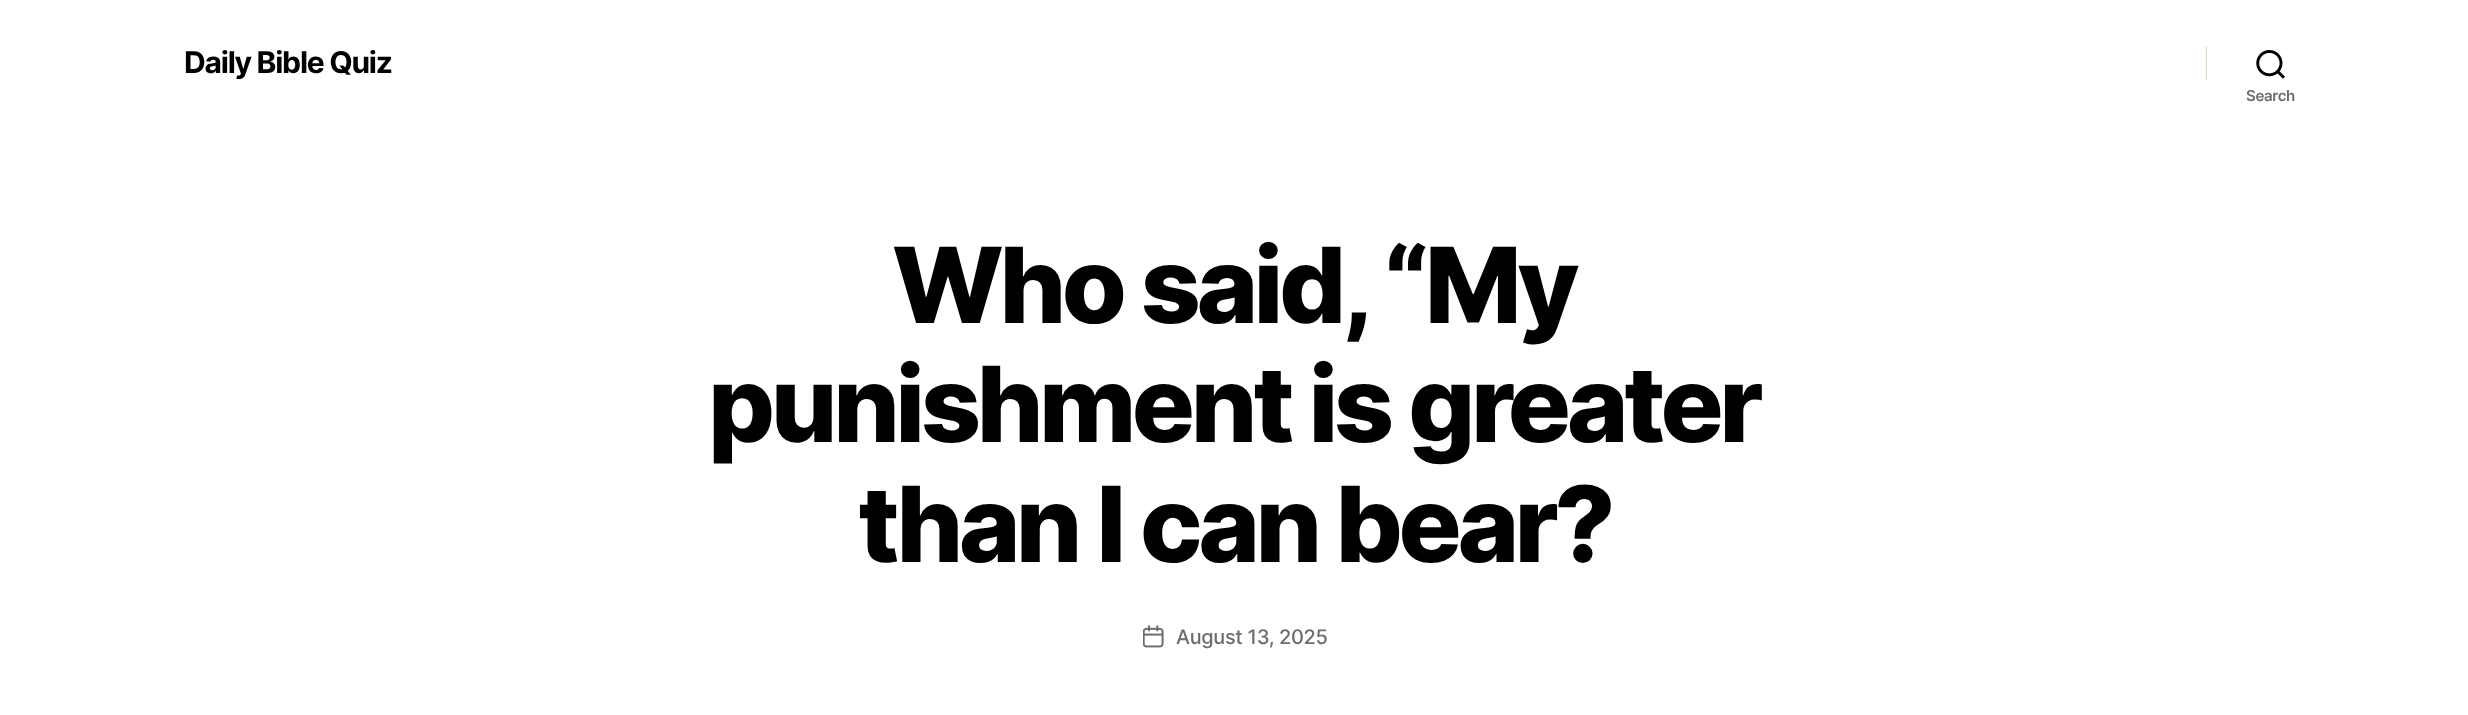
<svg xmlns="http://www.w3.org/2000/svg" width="2468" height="715">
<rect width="100%" height="100%" fill="#fff"/>
<text x="184" y="73" style="font-family:Inter;font-size:30px;font-weight:bold;letter-spacing:-1.25px;fill:#000">Daily Bible Quiz</text>
<rect x="2206" y="46" width="1" height="34" fill="#dcd7ca"/>
<image x="2256" y="50" width="29" height="29" href="media/1.png"/>
<text x="2246" y="101" style="font-family:Inter;font-size:15px;font-weight:600;letter-spacing:-0.3px;fill:#6d6d6d">Search</text>
<text x="892" y="323" style="font-family:Inter;font-size:105px;font-weight:800;letter-spacing:-4.4px;fill:#000">Who said, “My</text>
<text x="708" y="442" style="font-family:Inter;font-size:105px;font-weight:800;letter-spacing:-4.4px;fill:#000">punishment is greater</text>
<text x="858" y="562" style="font-family:Inter;font-size:105px;font-weight:800;letter-spacing:-4.4px;fill:#000">than I can bear?</text>
<image x="1143" y="625" width="21" height="23" href="media/2.png"/>
<text x="1176" y="644" style="font-family:Inter;font-size:20px;font-weight:500;letter-spacing:-0.3px;fill:#6d6d6d">August 13, 2025</text>
</svg>
